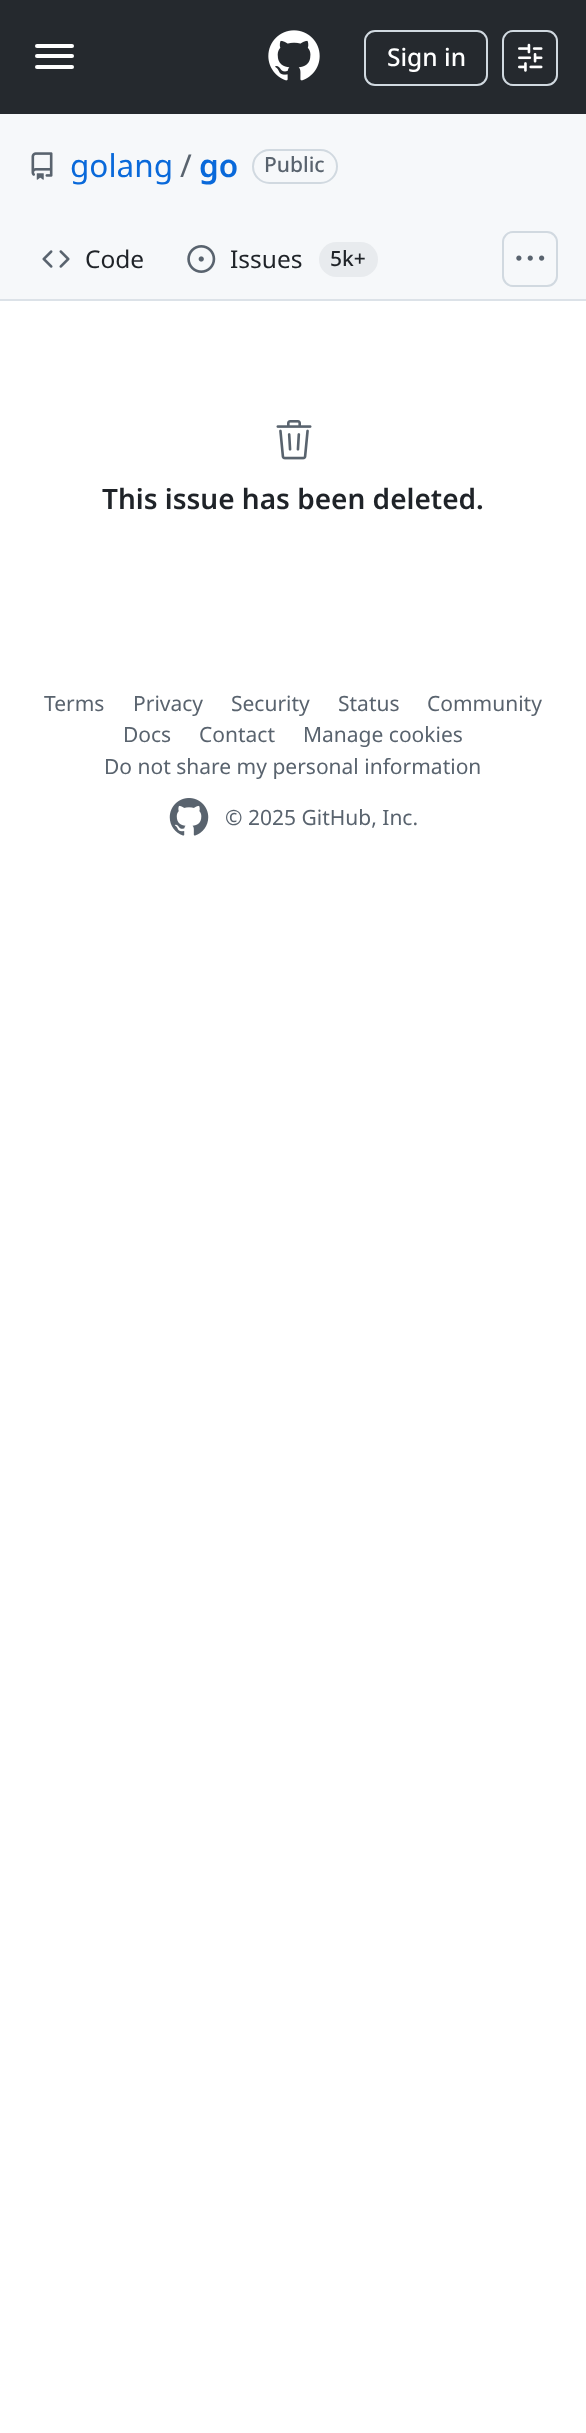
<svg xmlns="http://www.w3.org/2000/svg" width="586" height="2433">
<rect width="100%" height="100%" fill="#fff"/>
<rect width="586" height="114" fill="#25292e"/>
<rect x="35" y="44" width="39" height="4" rx="2" fill="#fff"/>
<rect x="35" y="54" width="39" height="4" rx="2" fill="#fff"/>
<rect x="35" y="65" width="39" height="4" rx="2" fill="#fff"/>
<image x="268" y="30" width="52" height="51" href="media/1.png"/>
<rect x="365" y="31" width="122" height="54" rx="10" fill="none" stroke="#d1d9e0" stroke-width="2"/>
<text x="387" y="66" style="font-family:Noto Sans;font-size:24.5px;font-weight:500;fill:#fff">Sign in</text>
<rect x="503" y="31" width="54" height="54" rx="10" fill="none" stroke="#d1d9e0" stroke-width="2"/>
<image x="518" y="43" width="25" height="29" href="media/2.png"/>
<rect y="114" width="586" height="185" fill="#f6f8fa"/>
<image x="31" y="152" width="22" height="28" href="media/3.png"/>
<text x="70" y="177" style="font-family:Noto Sans;font-size:31.5px;fill:#0969da">golang</text>
<text x="180" y="177" style="font-family:Noto Sans;font-size:31.5px;fill:#59636e">/</text>
<text x="199" y="177" style="font-family:Noto Sans;font-size:31.5px;font-weight:600;fill:#0969da">go</text>
<rect x="253" y="150" width="84" height="33" rx="16.5" fill="none" stroke="#d1d9e0" stroke-width="2"/>
<text x="264" y="172" style="font-family:Noto Sans;font-size:21px;font-weight:500;fill:#59636e">Public</text>
<rect y="299" width="586" height="2" fill="#dce2e8"/>
<image x="42" y="250" width="28" height="18" href="media/4.png"/>
<text x="85" y="268" style="font-family:Noto Sans;font-size:24.5px;fill:#1f2328">Code</text>
<image x="187" y="245" width="29" height="28" href="media/5.png"/>
<text x="230" y="268" style="font-family:Noto Sans;font-size:24.5px;fill:#1f2328">Issues</text>
<rect x="319" y="242" width="59" height="35" rx="17.5" fill="#e8ebee"/>
<text x="330" y="266" style="font-family:Noto Sans;font-size:21px;font-weight:500;fill:#1f2328">5k+</text>
<rect x="503" y="232" width="54" height="54" rx="10" fill="none" stroke="#d1d9e0" stroke-width="2"/>
<image x="516" y="255" width="29" height="6" href="media/6.png"/>
<image x="276" y="420" width="36" height="40" href="media/7.png"/>
<text x="102" y="509" style="font-family:Noto Sans;font-size:28px;font-weight:600;fill:#1f2328">This issue has been deleted.</text>
<text x="44" y="711" style="font-family:Noto Sans;font-size:21px;fill:#59636e">Terms</text>
<text x="133" y="711" style="font-family:Noto Sans;font-size:21px;fill:#59636e">Privacy</text>
<text x="231" y="711" style="font-family:Noto Sans;font-size:21px;fill:#59636e">Security</text>
<text x="338" y="711" style="font-family:Noto Sans;font-size:21px;fill:#59636e">Status</text>
<text x="427" y="711" style="font-family:Noto Sans;font-size:21px;fill:#59636e">Community</text>
<text x="123" y="742" style="font-family:Noto Sans;font-size:21px;fill:#59636e">Docs</text>
<text x="199" y="742" style="font-family:Noto Sans;font-size:21px;fill:#59636e">Contact</text>
<text x="303" y="742" style="font-family:Noto Sans;font-size:21px;fill:#59636e">Manage cookies</text>
<text x="104" y="774" style="font-family:Noto Sans;font-size:21px;fill:#59636e">Do not share my personal information</text>
<image x="169" y="798" width="40" height="38" href="media/8.png"/>
<text x="225" y="825" style="font-family:Noto Sans;font-size:21px;fill:#59636e">© 2025 GitHub, Inc.</text>
</svg>
